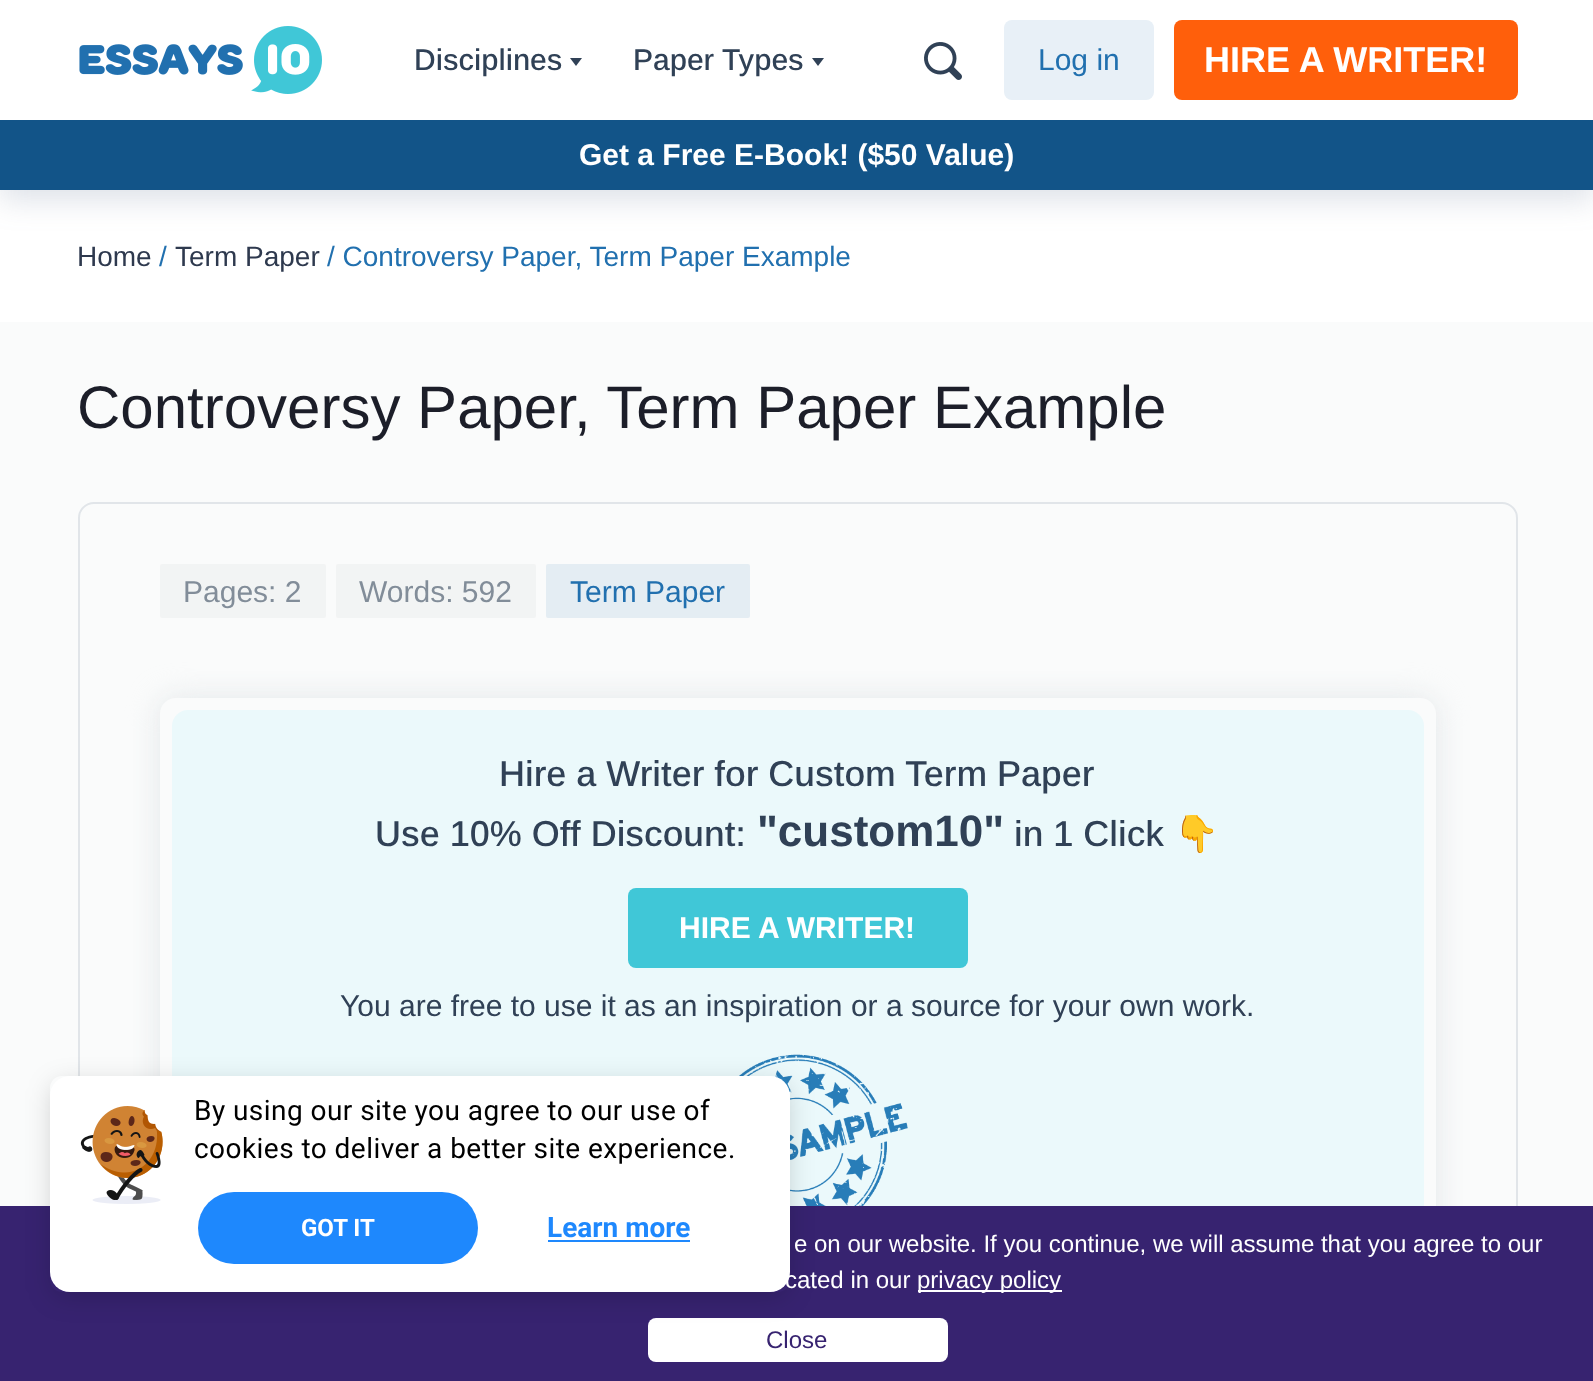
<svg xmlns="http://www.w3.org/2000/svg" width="1593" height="1381">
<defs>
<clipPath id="clip1"><path d="M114 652h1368v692h-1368zm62 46h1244c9 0 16 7 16 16v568c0 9-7 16-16 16h-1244c-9 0-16-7-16-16v-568c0-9 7-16 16-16z" clip-rule="evenodd"/></clipPath>
<clipPath id="clip2"><path d="M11 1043h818v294h-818zm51 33h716c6.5 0 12 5.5 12 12v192c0 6.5-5.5 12-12 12h-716c-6.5 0-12-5.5-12-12v-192c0-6.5 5.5-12 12-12z" clip-rule="evenodd"/></clipPath>
</defs>
<rect width="100%" height="100%" fill="#fafbfb"/>
<rect y="190" width="1593" height="132" fill="#fff"/>
<rect y="10" width="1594" height="190" fill="#53698d33" filter="blur(15px)"/>
<rect width="1593" height="120" fill="#fff"/>
<image x="79" y="26" width="243" height="68" href="media/1.png"/>
<text x="414" y="70" style="font-family:Arimo;font-size:30px;font-weight:500;fill:#304156">Disciplines</text>
<path d="M576 66l6-8h-12z" fill="#304156" fill-rule="evenodd"/>
<text x="633" y="70" style="font-family:Arimo;font-size:30px;font-weight:500;fill:#304156">Paper Types</text>
<path d="M818 66l6-8h-12z" fill="#304156" fill-rule="evenodd"/>
<image x="924" y="42" width="38" height="38" href="media/2.png"/>
<rect x="1004" y="20" width="150" height="80" rx="8" fill="#e8f0f7"/>
<text x="1038" y="70" style="font-family:Arimo;font-size:30px;fill:#2170af">Log in</text>
<rect x="1174" y="20" width="344" height="80" rx="8" fill="#ff5f0b"/>
<text x="1204" y="72" style="font-family:Arimo;font-size:36px;font-weight:bold;fill:#fff">HIRE A WRITER!</text>
<rect y="120" width="1593" height="70" fill="#125488"/>
<text x="579" y="165" style="font-family:Arimo;font-size:30px;font-weight:bold;fill:#fff">Get a Free E-Book! ($50 Value)</text>
<text x="77" y="266" style="font-family:Arimo;font-size:28px;fill:#2e394e">Home</text>
<text x="159" y="266" style="font-family:Arimo;font-size:28px;fill:#2170af">/</text>
<text x="175" y="266" style="font-family:Arimo;font-size:28px;fill:#2e394e">Term Paper</text>
<text x="327" y="266" style="font-family:Arimo;font-size:28px;fill:#2170af">/ Controversy Paper, Term Paper Example</text>
<text x="77" y="428" style="font-family:Arimo;font-size:60px;fill:#1c1e29">Controversy Paper, Term Paper Example</text>
<rect x="79" y="503" width="1438" height="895" rx="15" fill="none" stroke="#e1e5e9" stroke-width="2"/>
<rect x="160" y="564" width="166" height="54" rx="2" fill="#f2f4f4"/>
<text x="183" y="602" style="font-family:Arimo;font-size:30px;fill:#828d99">Pages: 2</text>
<rect x="336" y="564" width="200" height="54" rx="2" fill="#f2f4f4"/>
<text x="359" y="602" style="font-family:Arimo;font-size:30px;fill:#828d99">Words: 592</text>
<rect x="546" y="564" width="204" height="54" rx="2" fill="#e4edf3"/>
<text x="570" y="602" style="font-family:Arimo;font-size:30px;fill:#2170af">Term Paper</text>
<g clip-path="url(#clip1)">
<rect x="160" y="698" width="1276" height="600" rx="16" fill="#e3e7e9" filter="blur(15px)"/>
</g>
<rect x="172" y="710" width="1252" height="576" rx="16" fill="#ebf9fb"/>
<text x="499" y="786" style="font-family:Arimo;font-size:36px;font-weight:500;fill:#304156">Hire a Writer for Custom Term Paper</text>
<text x="375" y="846" style="font-family:Arimo;font-size:36px;font-weight:500;fill:#304156">Use 10% Off Discount:</text>
<text x="757" y="846" style="font-family:Arimo;font-size:44px;font-weight:bold;fill:#304156">"custom10"</text>
<text x="1014" y="846" style="font-family:Arimo;font-size:36px;font-weight:500;fill:#304156">in 1 Click</text>
<text x="1174" y="846" style="font-family:Noto Color Emoji;font-size:36px;fill:#304156">👇</text>
<rect x="628" y="888" width="340" height="80" rx="8" fill="#40c7d7"/>
<text x="679" y="938" style="font-family:Arimo;font-size:30px;font-weight:bold;fill:#fff">HIRE A WRITER!</text>
<text x="340" y="1016" style="font-family:Arimo;font-size:30px;fill:#304156">You are free to use it as an inspiration or a source for your own work.</text>
<image x="739" y="1054" width="169" height="152" href="media/3.png"/>
<rect y="1206" width="1593" height="175" fill="#372370"/>
<rect x="648" y="1318" width="300" height="44" rx="8" fill="#fff"/>
<g clip-path="url(#clip2)">
<rect x="54" y="1086" width="732" height="208" rx="8" fill="#00000033" filter="blur(14px)"/>
</g>
<rect x="50" y="1076" width="740" height="216" rx="20" fill="#fff"/>
<image x="80" y="1106" width="83" height="98" href="media/4.png"/>
<text x="194" y="1120" style="font-family:Roboto;font-size:28px;letter-spacing:0.45px;fill:#000">By using our site you agree to our use of</text>
<text x="194" y="1158" style="font-family:Roboto;font-size:28px;letter-spacing:0.45px;fill:#000">cookies to deliver a better site experience.</text>
<rect x="198" y="1192" width="280" height="72" rx="36" fill="#1e88fd"/>
<text x="301" y="1236" style="font-family:Roboto;font-size:24px;font-weight:bold;fill:#fff">GOT IT</text>
<text x="547" y="1237" style="font-family:Roboto;font-size:28px;font-weight:bold;fill:#1e88fd">Learn more</text>
<rect x="548" y="1240" width="142" height="2" fill="#1e88fd"/>
<text x="794" y="1252" style="font-family:Liberation Sans;font-size:24px;fill:#fff">e on our website. If you continue, we will assume that you agree to our</text>
<text x="785" y="1288" style="font-family:Liberation Sans;font-size:24px;fill:#fff">cated in our</text>
<rect x="918" y="1290" width="144" height="2" fill="#fff"/>
<text x="917" y="1288" style="font-family:Liberation Sans;font-size:24px;fill:#fff">privacy policy</text>
<text x="766" y="1348" style="font-family:Liberation Sans;font-size:24px;fill:#372370">Close</text>
</svg>
